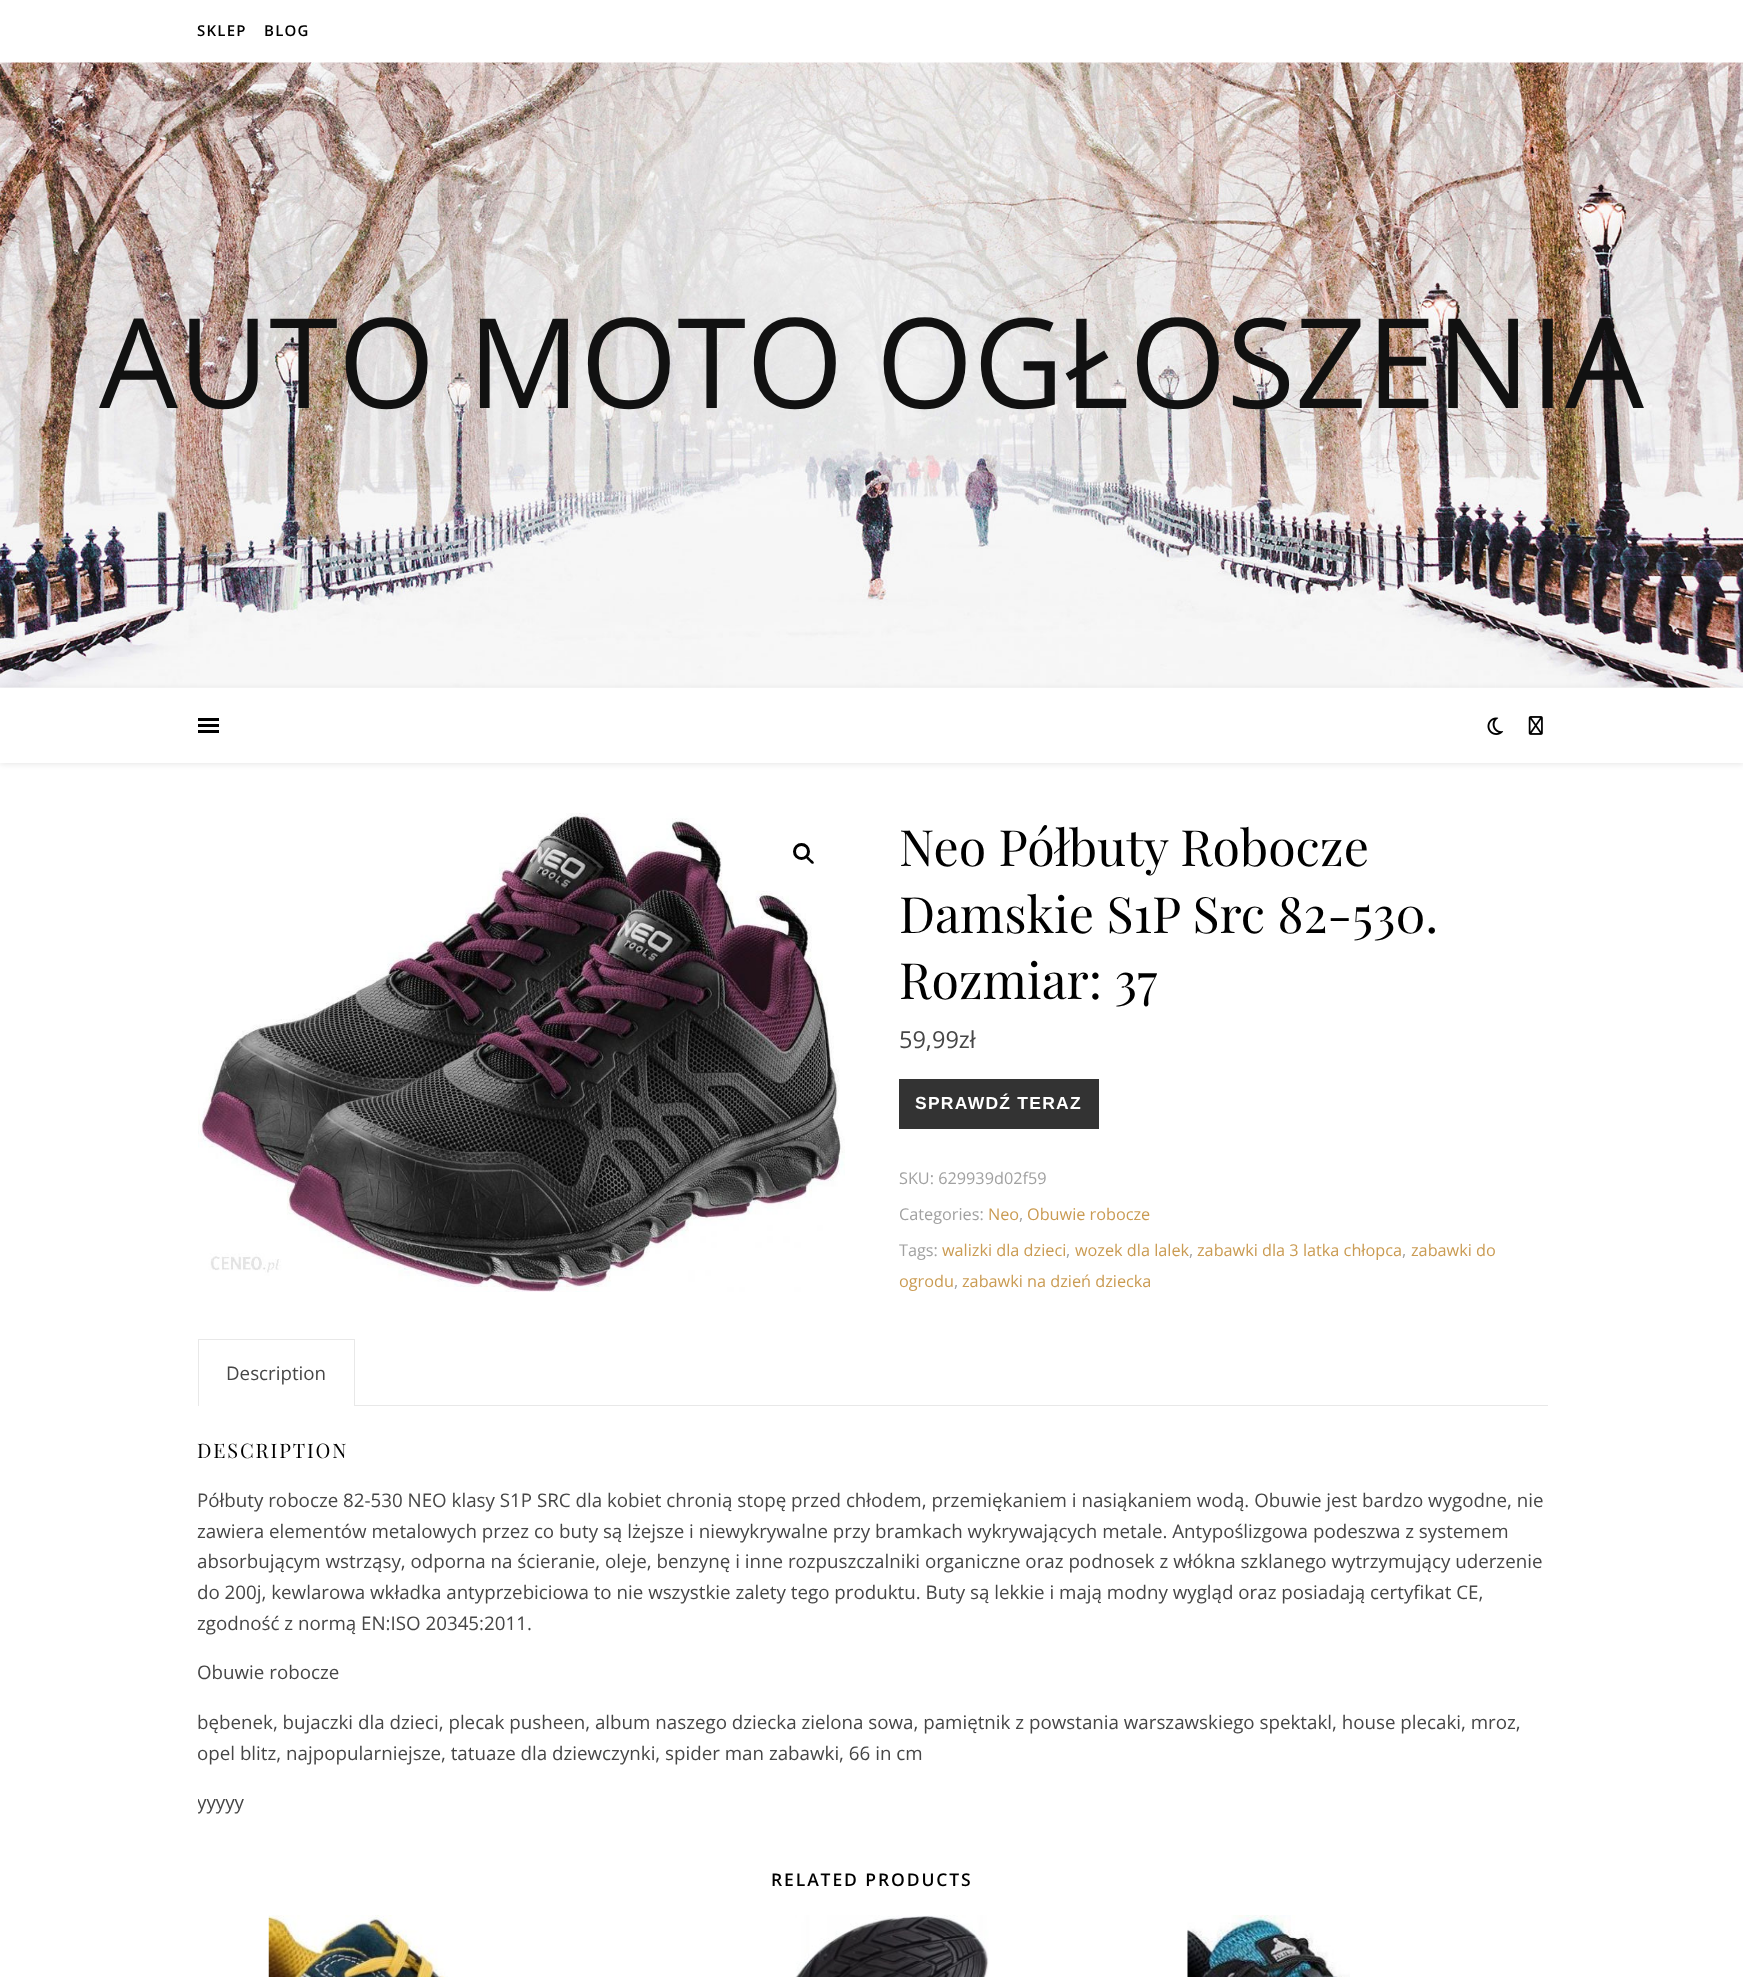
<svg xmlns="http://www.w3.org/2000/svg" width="1743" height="1977">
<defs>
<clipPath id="clip1"><rect x="198" y="813" width="1350" height="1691"/></clipPath>
</defs>
<rect width="100%" height="100%" fill="#fff"/>
<text x="197" y="36" style="font-family:Open Sans;font-size:15px;font-weight:600;letter-spacing:1.25px;fill:#000">SKLEP</text>
<text x="264" y="36" style="font-family:Open Sans;font-size:15px;font-weight:600;letter-spacing:1.25px;fill:#000">BLOG</text>
<image x="0" y="62" width="1743" height="626" href="media/1.png"/>
<text x="99" y="408" style="font-family:Open Sans;font-size:125px;fill:#111">AUTO MOTO OGŁOSZENIA</text>
<rect y="689" width="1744" height="75" fill="#0000001a" filter="blur(3px)"/>
<rect y="688" width="1743" height="75" fill="#fff"/>
<rect x="198" y="718" width="21" height="3" fill="#000"/>
<rect x="198" y="724" width="21" height="3" fill="#000"/>
<rect x="198" y="730" width="21" height="3" fill="#000"/>
<image x="1487" y="717" width="17" height="18" href="media/2.png"/>
<image x="1528" y="716" width="15" height="19" href="media/3.png"/>
<image x="198" y="813" width="647" height="479" href="media/4.png"/>
<circle cx="801.5" cy="851.5" r="7" fill="none" stroke="#000" stroke-width="3"/>
<path d="M806.5 856.5c1-1.5 3.5 2 4 2.5c1 1 4.5 3 3 4.5c-1.5 1.5-4-2-4.5-2.5c-1-1-4-3-2.5-4.5z" fill="#000"/>
<text x="899" y="866" style="font-family:Playfair Display;font-size:50px;fill:#000">Neo Półbuty Robocze</text>
<text x="899" y="933" style="font-family:Playfair Display;font-size:50px;fill:#000">Damskie S1P Src 82-530.</text>
<text x="899" y="999" style="font-family:Playfair Display;font-size:50px;fill:#000">Rozmiar: 37</text>
<text x="899" y="1048" style="font-family:Open Sans;font-size:23.5px;fill:#464646">59,99zł</text>
<rect x="899" y="1079" width="200" height="50" fill="#333"/>
<text x="915" y="1109" style="font-family:Liberation Sans;font-size:17.5px;font-weight:bold;letter-spacing:1.25px;fill:#fff">SPRAWDŹ TERAZ</text>
<text x="899" y="1184" style="font-family:Open Sans;font-size:16.25px;fill:#a1a1a1">SKU: 629939d02f59</text>
<text x="899" y="1220" style="font-family:Open Sans;font-size:16.25px;fill:#a1a1a1">Categories:</text>
<text x="988" y="1220" style="font-family:Open Sans;font-size:16.25px;fill:#ca9b52">Neo</text>
<text x="1019" y="1220" style="font-family:Open Sans;font-size:16.25px;fill:#a1a1a1">,</text>
<text x="1027" y="1220" style="font-family:Open Sans;font-size:16.25px;fill:#ca9b52">Obuwie robocze</text>
<text x="899" y="1256" style="font-family:Open Sans;font-size:16.25px;fill:#a1a1a1">Tags:</text>
<text x="942" y="1256" style="font-family:Open Sans;font-size:16.25px;fill:#ca9b52">walizki dla dzieci</text>
<text x="1066" y="1256" style="font-family:Open Sans;font-size:16.25px;fill:#a1a1a1">,</text>
<text x="1075" y="1256" style="font-family:Open Sans;font-size:16.25px;fill:#ca9b52">wozek dla lalek</text>
<text x="1189" y="1256" style="font-family:Open Sans;font-size:16.25px;fill:#a1a1a1">,</text>
<text x="1197" y="1256" style="font-family:Open Sans;font-size:16.25px;fill:#ca9b52">zabawki dla 3 latka chłopca</text>
<text x="1402" y="1256" style="font-family:Open Sans;font-size:16.25px;fill:#a1a1a1">,</text>
<text x="1411" y="1256" style="font-family:Open Sans;font-size:16.25px;fill:#ca9b52">zabawki do</text>
<text x="899" y="1287" style="font-family:Open Sans;font-size:16.25px;fill:#ca9b52">ogrodu</text>
<text x="954" y="1287" style="font-family:Open Sans;font-size:16.25px;fill:#a1a1a1">,</text>
<text x="962" y="1287" style="font-family:Open Sans;font-size:16.25px;fill:#ca9b52">zabawki na dzień dziecka</text>
<rect x="198" y="1339" width="157" height="1" fill="#e8e8e8"/>
<rect x="354" y="1339" width="1" height="67" fill="#e8e8e8"/>
<rect x="198" y="1339" width="1" height="67" fill="#e8e8e8"/>
<text x="226" y="1380" style="font-family:Open Sans;font-size:18.75px;fill:#464646">Description</text>
<rect x="355" y="1405" width="1193" height="1" fill="#e8e8e8"/>
<text x="197" y="1458" style="font-family:Playfair Display;font-size:20px;letter-spacing:1.9px;fill:#000">DESCRIPTION</text>
<text x="197" y="1507" style="font-family:Open Sans;font-size:18.75px;fill:#464646">Półbuty robocze 82-530 NEO klasy S1P SRC dla kobiet chronią stopę przed chłodem, przemiękaniem i nasiąkaniem wodą. Obuwie jest bardzo wygodne, nie</text>
<text x="197" y="1538" style="font-family:Open Sans;font-size:18.75px;fill:#464646">zawiera elementów metalowych przez co buty są lżejsze i niewykrywalne przy bramkach wykrywających metale. Antypoślizgowa podeszwa z systemem</text>
<text x="197" y="1568" style="font-family:Open Sans;font-size:18.75px;fill:#464646">absorbującym wstrząsy, odporna na ścieranie, oleje, benzynę i inne rozpuszczalniki organiczne oraz podnosek z włókna szklanego wytrzymujący uderzenie</text>
<text x="197" y="1599" style="font-family:Open Sans;font-size:18.75px;fill:#464646">do 200j, kewlarowa wkładka antyprzebiciowa to nie wszystkie zalety tego produktu. Buty są lekkie i mają modny wygląd oraz posiadają certyfikat CE,</text>
<text x="197" y="1630" style="font-family:Open Sans;font-size:18.75px;fill:#464646">zgodność z normą EN:ISO 20345:2011.</text>
<text x="197" y="1679" style="font-family:Open Sans;font-size:18.75px;fill:#464646">Obuwie robocze</text>
<text x="197" y="1729" style="font-family:Open Sans;font-size:18.75px;fill:#464646">bębenek, bujaczki dla dzieci, plecak pusheen, album naszego dziecka zielona sowa, pamiętnik z powstania warszawskiego spektakl, house plecaki, mroz,</text>
<text x="197" y="1760" style="font-family:Open Sans;font-size:18.75px;fill:#464646">opel blitz, najpopularniejsze, tatuaze dla dziewczynki, spider man zabawki, 66 in cm</text>
<g clip-path="url(#clip1)">
<text x="197" y="1809" style="font-family:Open Sans;font-size:18.75px;fill:#464646">yyyyy</text>
</g>
<text x="771" y="1886" style="font-family:Open Sans;font-size:17.5px;font-weight:600;letter-spacing:1.9px;fill:#000">RELATED PRODUCTS</text>
<image x="268" y="1915" width="180" height="62" href="media/5.png"/>
<image x="795" y="1915" width="194" height="62" href="media/6.png"/>
<image x="1187" y="1915" width="163" height="62" href="media/7.png"/>
</svg>
